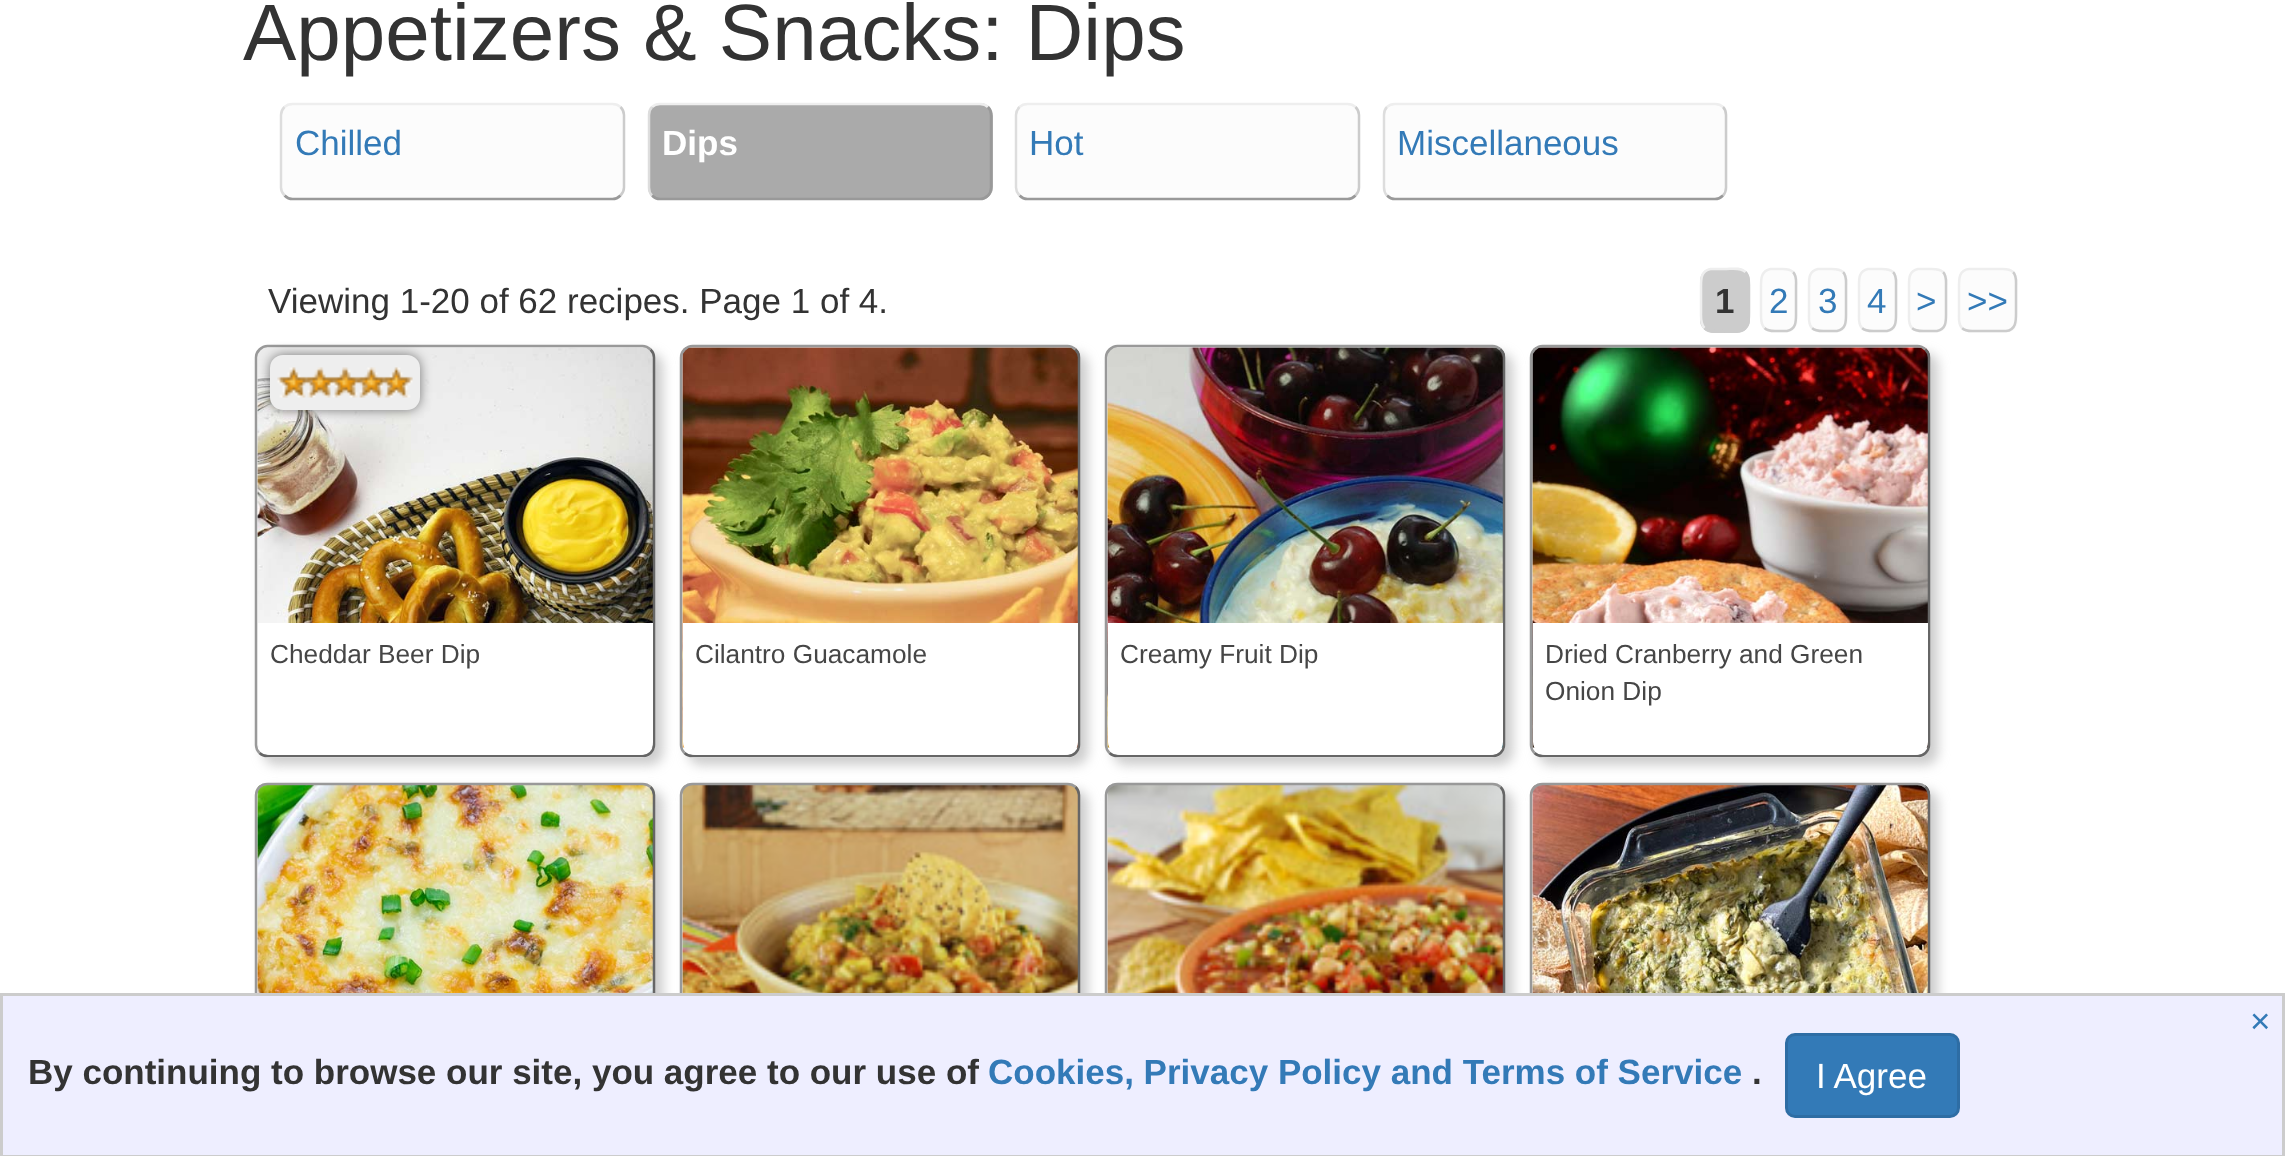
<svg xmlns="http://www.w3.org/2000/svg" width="2285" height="1156">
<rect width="100%" height="100%" fill="#fff"/>
<text x="243" y="60" style="font-family:Liberation Sans;font-size:80px;fill:#333">Appetizers &amp; Snacks: Dips</text>
<rect x="280" y="103" width="345" height="97" rx="13" fill="#fcfcfc"/>
<path d="M284.5 107c2-2 5-3 8-3h320c3 0 6 1 8 3" fill="none" stroke="#eee" stroke-width="2.5"/>
<path d="M620.5 107c2 2 3.5 5 3.5 8v72.5c0 3-1.5 6-3.5 8" fill="none" stroke="#ccc" stroke-width="2.5"/>
<path d="M620.5 195.5c-2 2-5 3.5-8 3.5h-320c-3 0-6-1.5-8-3.5" fill="none" stroke="#999" stroke-width="2.5"/>
<path d="M284.5 195.5c-2-2-3.5-5-3.5-8v-72.5c0-3 1.5-6 3.5-8" fill="none" stroke="#ddd" stroke-width="2.5"/>
<text x="295" y="155" style="font-family:Liberation Sans;font-size:35px;fill:#337ab7">Chilled</text>
<rect x="648" y="103" width="345" height="97" rx="13" fill="#aaa"/>
<path d="M652 107c2-2 5-3 8-3h320c3 0 6 1 8 3" fill="none" stroke="#eee" stroke-width="2.5"/>
<path d="M988 107c2 2 3 5 3 8v72.5c0 3-1 6-3 8c-2 2-5 3.5-8 3.5h-320c-3 0-6-1.5-8-3.5" fill="none" stroke="#999" stroke-width="2.5"/>
<path d="M652 195.5c-2-2-3-5-3-8v-72.5c0-3 1-6 3-8" fill="none" stroke="#ddd" stroke-width="2.5"/>
<text x="662" y="155" style="font-family:Liberation Sans;font-size:35px;font-weight:bold;fill:#fff">Dips</text>
<rect x="1015" y="103" width="345" height="97" rx="13" fill="#fcfcfc"/>
<path d="M1019.5 107c2-2 5-3 8-3h320c3 0 6 1 8 3" fill="none" stroke="#eee" stroke-width="2.5"/>
<path d="M1355.5 107c2 2 3.5 5 3.5 8v72.5c0 3-1.5 6-3.5 8" fill="none" stroke="#ccc" stroke-width="2.5"/>
<path d="M1355.5 195.5c-2 2-5 3.5-8 3.5h-320c-3 0-6-1.5-8-3.5" fill="none" stroke="#999" stroke-width="2.5"/>
<path d="M1019.5 195.5c-2-2-3.5-5-3.5-8v-72.5c0-3 1.5-6 3.5-8" fill="none" stroke="#ddd" stroke-width="2.5"/>
<text x="1029" y="155" style="font-family:Liberation Sans;font-size:35px;fill:#337ab7">Hot</text>
<rect x="1383" y="103" width="345" height="97" rx="13" fill="#fcfcfc"/>
<path d="M1387 107c2-2 5-3 8-3h320c3 0 6 1 8 3" fill="none" stroke="#eee" stroke-width="2.5"/>
<path d="M1723 107c2 2 3 5 3 8v72.5c0 3-1 6-3 8" fill="none" stroke="#ccc" stroke-width="2.5"/>
<path d="M1723 195.5c-2 2-5 3.5-8 3.5h-320c-3 0-6-1.5-8-3.5" fill="none" stroke="#999" stroke-width="2.5"/>
<path d="M1387 195.5c-2-2-3-5-3-8v-72.5c0-3 1-6 3-8" fill="none" stroke="#ddd" stroke-width="2.5"/>
<text x="1397" y="155" style="font-family:Liberation Sans;font-size:35px;fill:#337ab7">Miscellaneous</text>
<text x="268" y="313" style="font-family:Liberation Sans;font-size:35px;fill:#333">Viewing 1-20 of 62 recipes. Page 1 of 4.</text>
<rect x="1700" y="268" width="50" height="65" rx="13" fill="#ccc"/>
<path d="M1745.5 272c4 4 3.5 9.5 3.5 14.5v27c0 7.5 0 15.5-9.5 17.5h-14.5c-6.5 0-15.5 2-20.5-3" fill="none" stroke="#ccc" stroke-width="2.5"/>
<path d="M1704.5 328c-4-4-3.5-9.5-3.5-14.5v-27c0-7.5 0-15.5 9.5-17.5h14.5c6.5 0 15.5-2 20.5 3" fill="none" stroke="#eee" stroke-width="2.5"/>
<text x="1715" y="313" style="font-family:Liberation Sans;font-size:35px;font-weight:bold;fill:#333">1</text>
<rect x="1760" y="268" width="38" height="65" rx="13" fill="#fcfcfc"/>
<path d="M1793 272c4 4 3 9.5 3 14.5v27c0 7.5 .5 15.5-9 17.5h-8c-5.5 0-10.5 1-14.5-3" fill="none" stroke="#ccc" stroke-width="2.5"/>
<path d="M1764.5 328c-4-4-3.5-9.5-3.5-14.5v-27c0-7.5 0-15.5 9.5-17.5h8.5c5 0 10-1 14 3" fill="none" stroke="#eee" stroke-width="2.5"/>
<text x="1769" y="313" style="font-family:Liberation Sans;font-size:35px;fill:#337ab7">2</text>
<rect x="1808" y="268" width="40" height="65" rx="13" fill="#fcfcfc"/>
<path d="M1843 272c4 4 3 9.5 3 14.5v27c0 7.5 .5 15.5-9 17.5h-9.5c-5.5 0-11.5 1-15.5-3" fill="none" stroke="#ccc" stroke-width="2.5"/>
<path d="M1812 328c-4-4-3-9.5-3-14.5v-27c0-7.5-.5-15.5 9-17.5h9.5c5.5 0 11.5-1 15.5 3" fill="none" stroke="#eee" stroke-width="2.5"/>
<text x="1818" y="313" style="font-family:Liberation Sans;font-size:35px;fill:#337ab7">3</text>
<rect x="1858" y="268" width="40" height="65" rx="13" fill="#fcfcfc"/>
<path d="M1893 272c4 4 3 9.5 3 14.5v27c0 7.5 .5 15.5-9 17.5h-9.5c-5.5 0-11.5 1-15.5-3" fill="none" stroke="#ccc" stroke-width="2.5"/>
<path d="M1862 328c-4-4-3-9.5-3-14.5v-27c0-7.5-.5-15.5 9-17.5h9.5c5.5 0 11.5-1 15.5 3" fill="none" stroke="#eee" stroke-width="2.5"/>
<text x="1867" y="313" style="font-family:Liberation Sans;font-size:35px;fill:#337ab7">4</text>
<rect x="1908" y="268" width="40" height="65" rx="13" fill="#fcfcfc"/>
<path d="M1943 272c4 4 3 9.5 3 14.5v27c0 7.5 .5 15.5-9 17.5h-9.5c-5.5 0-11.5 1-15.5-3" fill="none" stroke="#ccc" stroke-width="2.5"/>
<path d="M1912 328c-4-4-3-9.5-3-14.5v-27c0-7.5-.5-15.5 9-17.5h9.5c5.5 0 11.5-1 15.5 3" fill="none" stroke="#eee" stroke-width="2.5"/>
<text x="1916" y="313" style="font-family:Liberation Sans;font-size:35px;fill:#337ab7">&gt;</text>
<rect x="1958" y="268" width="60" height="65" rx="13" fill="#fcfcfc"/>
<path d="M2013 272c4 4 3 9.5 3 14.5v27c0 7.5 0 16.5-10 17.5h-30c-5 0-10 1-14-3" fill="none" stroke="#ccc" stroke-width="2.5"/>
<path d="M1962 328c-4-4-3-9.5-3-14.5v-27c0-7.5 0-16.5 10-17.5h30c5 0 10-1 14 3" fill="none" stroke="#eee" stroke-width="2.5"/>
<text x="1967" y="313" style="font-family:Liberation Sans;font-size:35px;fill:#337ab7">&gt;&gt;</text>
<rect x="263" y="353" width="400" height="412" rx="13" fill="#99999980" filter="blur(6px)"/>
<rect x="255" y="345" width="400" height="413" rx="13" fill="#fff"/>
<image x="257" y="347" width="398" height="401" href="media/1.png"/>
<path d="M650.5 349.5c2 2 3.5 5 3.5 8v387.5c0 3-1.5 6-3.5 8c-2 2-5 3-8 3h-375c-3 0-6-1-8-3" fill="none" stroke="#666" stroke-width="2.5"/>
<path d="M259.5 753c-2-2-3.5-5-3.5-8v-387.5c0-3 1.5-6 3.5-8c2-2 5-3.5 8-3.5h375c3 0 6 1.5 8 3.5" fill="none" stroke="#999" stroke-width="2.5"/>
<rect x="270" y="355" width="150" height="55" rx="13" fill="#00000080" filter="blur(6px)"/>
<rect x="270" y="355" width="150" height="55" rx="13" fill="#eee"/>
<image x="277" y="367" width="136" height="31" href="media/2.png"/>
<path d="M258 623h395v119c0 7-6 13-13 13h-369c-7 0-13-6-13-13z" fill="#fff"/>
<text x="270" y="663" style="font-family:Liberation Sans;font-size:26.25px;fill:#464646">Cheddar Beer Dip</text>
<rect x="688" y="353" width="400" height="412" rx="13" fill="#99999980" filter="blur(6px)"/>
<rect x="680" y="345" width="400" height="413" rx="13" fill="#fff"/>
<image x="682" y="347" width="398" height="401" href="media/3.png"/>
<path d="M1075.5 349.5c2 2 3.5 5 3.5 8v387.5c0 3-1.5 6-3.5 8c-2 2-5 3-8 3h-375c-3 0-6-1-8-3" fill="none" stroke="#666" stroke-width="2.5"/>
<path d="M684.5 753c-2-2-3.5-5-3.5-8v-387.5c0-3 1.5-6 3.5-8c2-2 5-3.5 8-3.5h375c3 0 6 1.5 8 3.5" fill="none" stroke="#999" stroke-width="2.5"/>
<path d="M683 623h395v119c0 7-6 13-13 13h-369c-7 0-13-6-13-13z" fill="#fff"/>
<text x="695" y="663" style="font-family:Liberation Sans;font-size:26.25px;fill:#464646">Cilantro Guacamole</text>
<rect x="1113" y="353" width="400" height="412" rx="13" fill="#99999980" filter="blur(6px)"/>
<rect x="1105" y="345" width="400" height="413" rx="13" fill="#fff"/>
<image x="1107" y="347" width="398" height="401" href="media/4.png"/>
<path d="M1500.5 349.5c2 2 3.5 5 3.5 8v387.5c0 3-1.5 6-3.5 8c-2 2-5 3-8 3h-375c-3 0-6-1-8-3" fill="none" stroke="#666" stroke-width="2.5"/>
<path d="M1109.5 753c-2-2-3.5-5-3.5-8v-387.5c0-3 1.5-6 3.5-8c2-2 5-3.5 8-3.5h375c3 0 6 1.5 8 3.5" fill="none" stroke="#999" stroke-width="2.5"/>
<path d="M1108 623h395v119c0 7-6 13-13 13h-369c-7 0-13-6-13-13z" fill="#fff"/>
<text x="1120" y="663" style="font-family:Liberation Sans;font-size:26.25px;fill:#464646">Creamy Fruit Dip</text>
<rect x="1538" y="353" width="400" height="412" rx="13" fill="#99999980" filter="blur(6px)"/>
<rect x="1530" y="345" width="400" height="413" rx="13" fill="#fff"/>
<image x="1532" y="347" width="398" height="401" href="media/5.png"/>
<path d="M1925.5 349.5c2 2 3.5 5 3.5 8v387.5c0 3-1.5 6-3.5 8c-2 2-5 3-8 3h-375c-3 0-6-1-8-3" fill="none" stroke="#666" stroke-width="2.5"/>
<path d="M1534.5 753c-2-2-3.5-5-3.5-8v-387.5c0-3 1.5-6 3.5-8c2-2 5-3.5 8-3.5h375c3 0 6 1.5 8 3.5" fill="none" stroke="#999" stroke-width="2.5"/>
<path d="M1533 623h395v119c0 7-6 13-13 13h-369c-7 0-13-6-13-13z" fill="#fff"/>
<text x="1545" y="663" style="font-family:Liberation Sans;font-size:26.25px;fill:#464646">Dried Cranberry and Green</text>
<text x="1545" y="700" style="font-family:Liberation Sans;font-size:26.25px;fill:#464646">Onion Dip</text>
<rect x="263" y="790" width="400" height="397" rx="13" fill="#99999980" filter="blur(6px)"/>
<rect x="255" y="783" width="400" height="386" rx="13" fill="#fff"/>
<image x="257" y="785" width="398" height="208" href="media/6.png"/>
<path d="M650.5 787c2 2 3.5 5 3.5 8v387.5c0 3-1.5 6-3.5 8c-2 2-5 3.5-8 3.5h-375c-3 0-6-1.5-8-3.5" fill="none" stroke="#666" stroke-width="2.5"/>
<path d="M259.5 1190.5c-2-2-3.5-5-3.5-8v-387.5c0-3 1.5-6 3.5-8c2-2 5-3 8-3h375c3 0 6 1 8 3" fill="none" stroke="#999" stroke-width="2.5"/>
<rect x="688" y="790" width="400" height="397" rx="13" fill="#99999980" filter="blur(6px)"/>
<rect x="680" y="783" width="400" height="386" rx="13" fill="#fff"/>
<image x="682" y="785" width="398" height="208" href="media/7.png"/>
<path d="M1075.5 787c2 2 3.5 5 3.5 8v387.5c0 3-1.5 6-3.5 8c-2 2-5 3.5-8 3.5h-375c-3 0-6-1.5-8-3.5" fill="none" stroke="#666" stroke-width="2.5"/>
<path d="M684.5 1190.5c-2-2-3.5-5-3.5-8v-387.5c0-3 1.5-6 3.5-8c2-2 5-3 8-3h375c3 0 6 1 8 3" fill="none" stroke="#999" stroke-width="2.5"/>
<rect x="1113" y="790" width="400" height="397" rx="13" fill="#99999980" filter="blur(6px)"/>
<rect x="1105" y="783" width="400" height="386" rx="13" fill="#fff"/>
<image x="1107" y="785" width="398" height="208" href="media/8.png"/>
<path d="M1500.5 787c2 2 3.5 5 3.5 8v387.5c0 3-1.5 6-3.5 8c-2 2-5 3.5-8 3.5h-375c-3 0-6-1.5-8-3.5" fill="none" stroke="#666" stroke-width="2.5"/>
<path d="M1109.5 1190.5c-2-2-3.5-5-3.5-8v-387.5c0-3 1.5-6 3.5-8c2-2 5-3 8-3h375c3 0 6 1 8 3" fill="none" stroke="#999" stroke-width="2.5"/>
<rect x="1538" y="790" width="400" height="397" rx="13" fill="#99999980" filter="blur(6px)"/>
<rect x="1530" y="783" width="400" height="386" rx="13" fill="#fff"/>
<image x="1532" y="785" width="398" height="208" href="media/9.png"/>
<path d="M1925.5 787c2 2 3.5 5 3.5 8v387.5c0 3-1.5 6-3.5 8c-2 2-5 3.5-8 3.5h-375c-3 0-6-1.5-8-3.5" fill="none" stroke="#666" stroke-width="2.5"/>
<path d="M1534.5 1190.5c-2-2-3.5-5-3.5-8v-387.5c0-3 1.5-6 3.5-8c2-2 5-3 8-3h375c3 0 6 1 8 3" fill="none" stroke="#999" stroke-width="2.5"/>
<rect x="1.5" y="994.5" width="2282" height="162" fill="#eef" stroke="#ccc" stroke-width="3"/>
<text x="2250" y="1033" style="font-family:Liberation Sans;font-size:35px;fill:#337ab7">×</text>
<text x="28" y="1084" style="font-family:Liberation Sans;font-size:35px;font-weight:bold;fill:#333">By continuing to browse our site, you agree to our use of</text>
<text x="988" y="1084" style="font-family:Liberation Sans;font-size:35px;font-weight:bold;fill:#337ab7">Cookies, Privacy Policy and Terms of Service</text>
<text x="1752" y="1084" style="font-family:Liberation Sans;font-size:35px;font-weight:bold;fill:#333">.</text>
<rect x="1786.5" y="1034.5" width="172" height="82" rx="8.5" fill="#337ab7" stroke="#2e6da4" stroke-width="3"/>
<text x="1816" y="1088" style="font-family:Liberation Sans;font-size:35px;fill:#fff">I Agree</text>
</svg>
